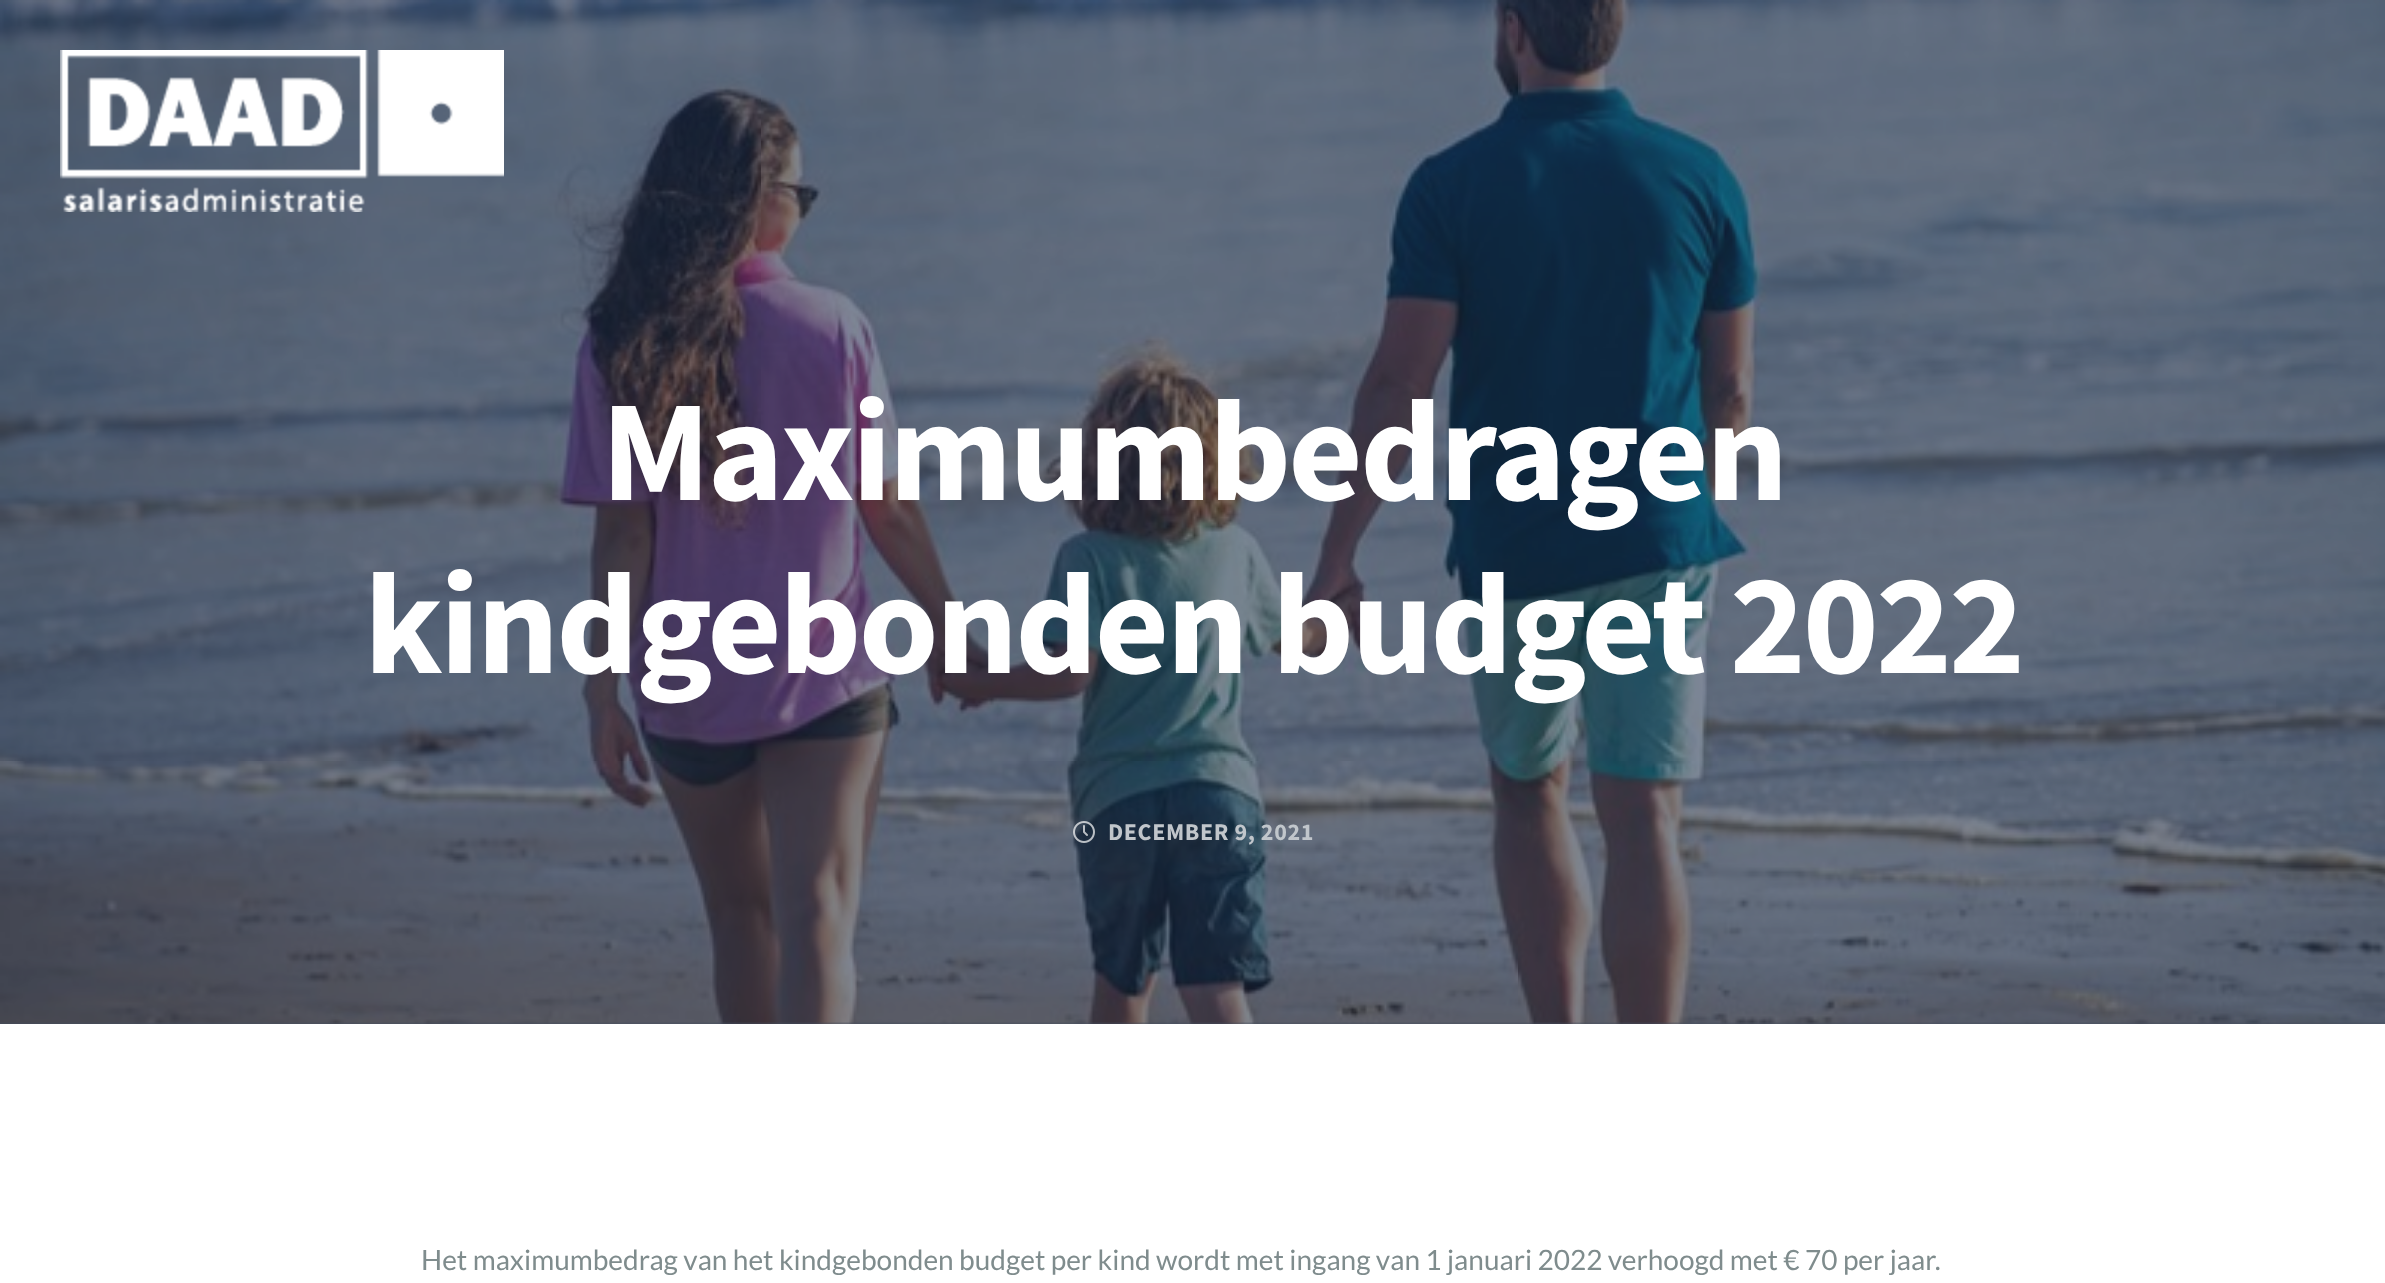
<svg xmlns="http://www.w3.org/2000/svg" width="2385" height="1283">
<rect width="100%" height="100%" fill="#434d5e"/>
<image x="0" y="0" width="2385" height="1024" href="media/2.png"/>
<image x="60" y="50" width="444" height="162" href="media/1.png"/>
<text x="601" y="500" style="font-family:Source Sans Pro;font-size:144px;font-weight:bold;letter-spacing:-2.9px;fill:#fff">Maximumbedragen</text>
<text x="364" y="673" style="font-family:Source Sans Pro;font-size:144px;font-weight:bold;letter-spacing:-2.9px;fill:#fff">kindgebonden budget 2022</text>
<image x="1073" y="821" width="22" height="22" href="media/3.png"/>
<text x="1108" y="840" style="font-family:Source Sans Pro;font-size:24px;font-weight:bold;letter-spacing:0.6px;fill:#c1c6cb">DECEMBER 9, 2021</text>
<rect y="1024" width="2385" height="259" fill="#fff"/>
<text x="421" y="1270" style="font-family:Lato;font-size:28px;fill:#7f8c8d">Het maximumbedrag van het kindgebonden budget per kind wordt met ingang van 1 januari 2022 verhoogd met € 70 per jaar.</text>
</svg>
